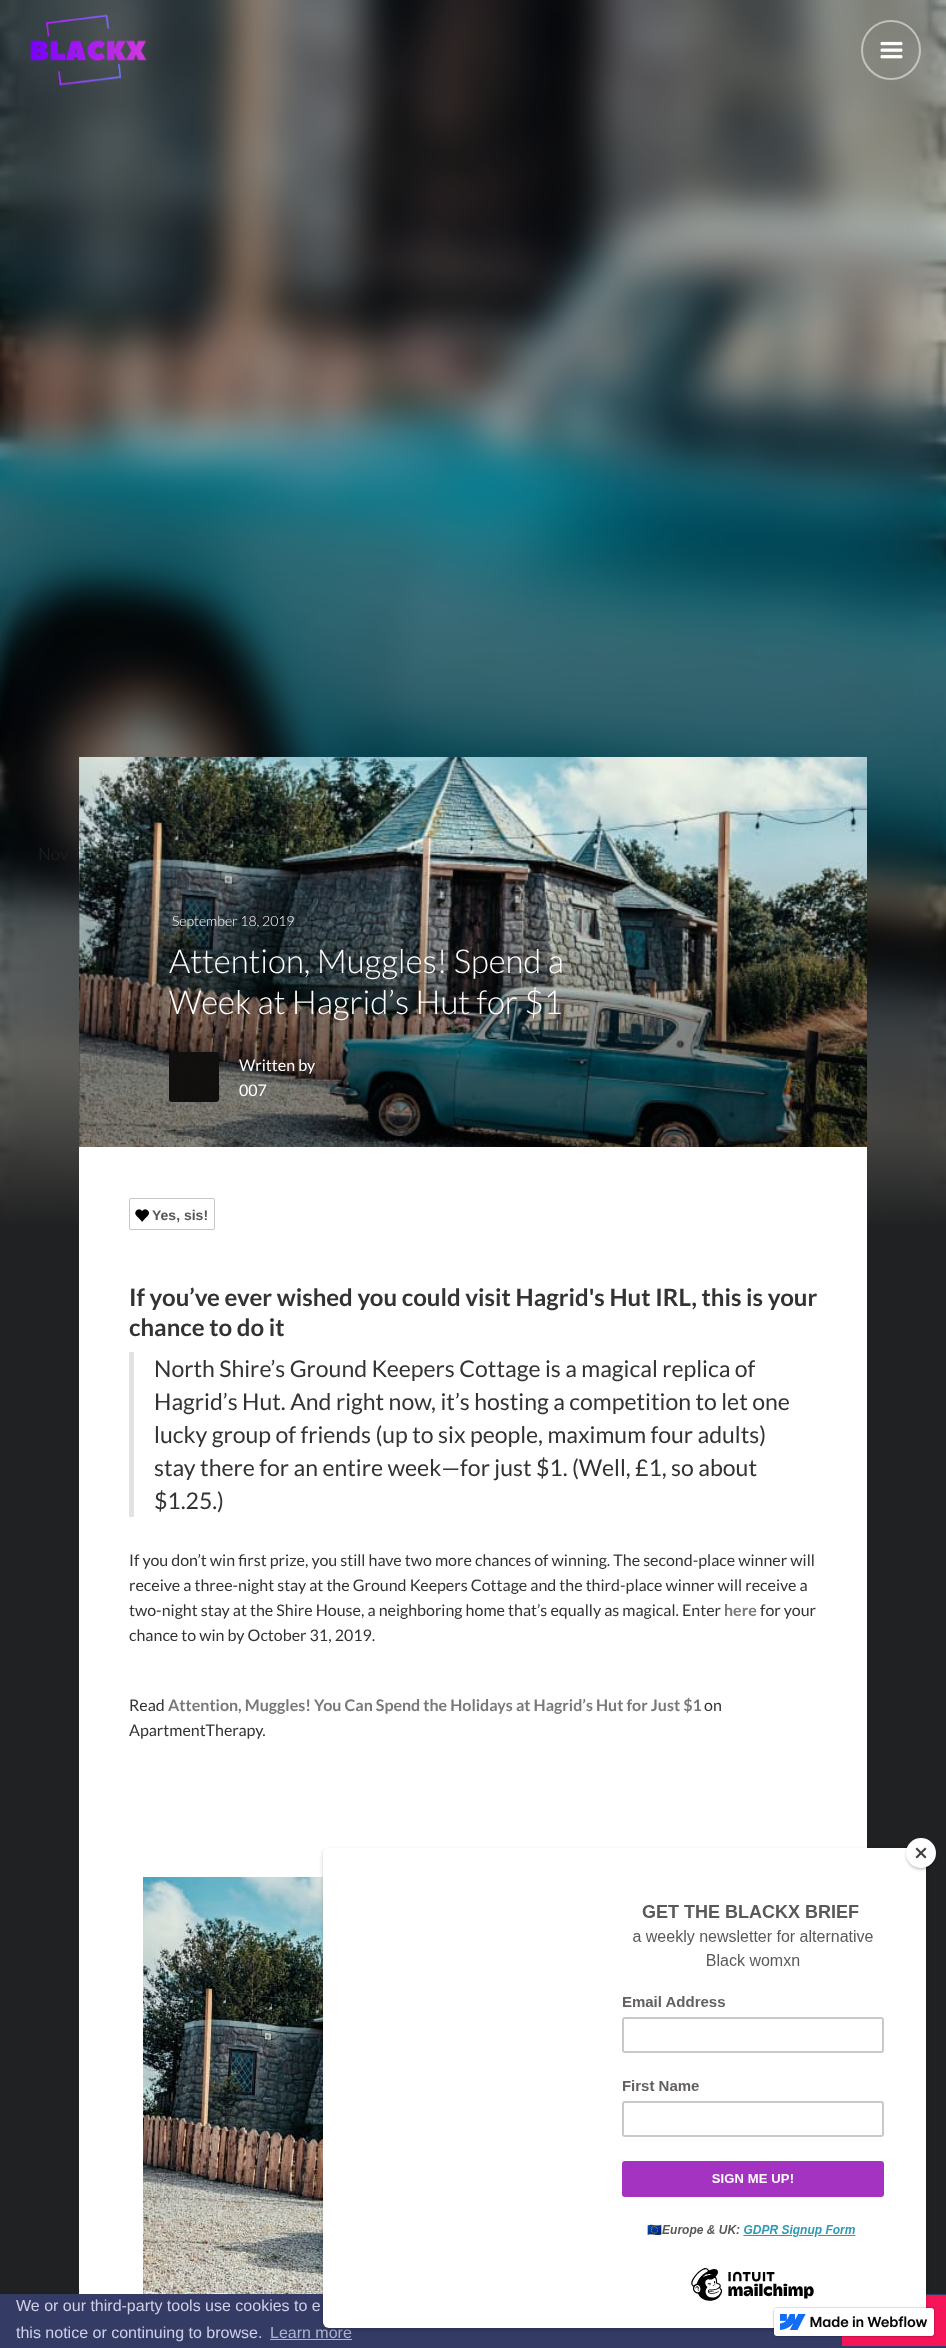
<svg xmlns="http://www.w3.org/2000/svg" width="946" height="2348">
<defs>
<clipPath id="clip1"><rect x="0" y="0" width="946" height="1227"/></clipPath>
<linearGradient id="g1" gradientUnits="userSpaceOnUse" x1="473" y1="907" x2="473" y2="1227"><stop offset="0" stop-color="#202122" stop-opacity="0"/><stop offset="1" stop-color="#202122"/></linearGradient>
</defs>
<rect width="100%" height="100%" fill="#202122"/>
<image x="0" y="0" width="946" height="1225" href="media/1.png"/>
<image x="0" y="0" width="946" height="1225" href="media/4.png"/>
<g clip-path="url(#clip1)">
<rect y="-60" width="946" height="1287" fill="#00000033" filter="blur(20px)"/>
</g>
<image x="30" y="14" width="117" height="72" href="media/2.png"/>
<circle cx="891" cy="50" r="29" fill="none" stroke="#ffffff80" stroke-width="2"/>
<image x="880" y="41" width="23" height="18" href="media/3.png"/>
<text x="38" y="860" style="font-family:Lato;font-size:17px;font-weight:300;fill:#262526">Nov</text>
<rect y="920" width="946" height="307" fill="url(#g1)"/>
<rect x="79" y="1147" width="788" height="1147" fill="#fff"/>
<image x="79" y="757" width="788" height="390" href="media/5.png"/>
<text x="172" y="926" style="font-family:Lato;font-size:14px;font-weight:300;fill:#fff">September 18, 2019</text>
<text x="169" y="973" style="font-family:Lato;font-size:33px;font-weight:300;fill:#fff">Attention, Muggles! Spend a</text>
<text x="169" y="1014" style="font-family:Lato;font-size:33px;font-weight:300;fill:#fff">Week at Hagrid’s Hut for $1</text>
<image x="169" y="1052" width="50" height="50" href="media/6.png"/>
<text x="239" y="1071" style="font-family:Lato;font-size:16px;fill:#fff">Written by</text>
<text x="239" y="1096" style="font-family:Lato;font-size:16px;fill:#fff">007</text>
<rect x="129.5" y="1198.5" width="85" height="31" rx="1.5" fill="none" stroke="#c6c6c6"/>
<image x="135" y="1209" width="14" height="13" href="media/7.png"/>
<text x="152" y="1220" style="font-family:Liberation Sans;font-size:14px;font-weight:bold;fill:#555">Yes, sis!</text>
<text x="129" y="1306" style="font-family:Lato;font-size:24px;font-weight:bold;fill:#333">If you’ve ever wished you could visit Hagrid's Hut IRL, this is your</text>
<text x="129" y="1336" style="font-family:Lato;font-size:24px;font-weight:bold;fill:#333">chance to do it</text>
<rect x="129" y="1352" width="5" height="165" fill="#e2e2e2"/>
<text x="154" y="1377" style="font-family:Lato;font-size:23px;fill:#333">North Shire’s Ground Keepers Cottage is a magical replica of</text>
<text x="154" y="1410" style="font-family:Lato;font-size:23px;fill:#333">Hagrid’s Hut. And right now, it’s hosting a competition to let one</text>
<text x="154" y="1443" style="font-family:Lato;font-size:23px;fill:#333">lucky group of friends (up to six people, maximum four adults)</text>
<text x="154" y="1476" style="font-family:Lato;font-size:23px;fill:#333">stay there for an entire week—for just $1. (Well, £1, so about</text>
<text x="154" y="1509" style="font-family:Lato;font-size:23px;fill:#333">$1.25.)</text>
<text x="129" y="1566" style="font-family:Lato;font-size:16px;fill:#333">If you don’t win first prize, you still have two more chances of winning. The second-place winner will</text>
<text x="129" y="1591" style="font-family:Lato;font-size:16px;fill:#333">receive a three-night stay at the Ground Keepers Cottage and the third-place winner will receive a</text>
<text x="129" y="1616" style="font-family:Lato;font-size:16px;fill:#333">two-night stay at the Shire House, a neighboring home that’s equally as magical. Enter</text>
<text x="724" y="1616" style="font-family:Lato;font-size:16px;font-weight:bold;fill:#797979">here</text>
<text x="760" y="1616" style="font-family:Lato;font-size:16px;fill:#333">for your</text>
<text x="129" y="1641" style="font-family:Lato;font-size:16px;fill:#333">chance to win by October 31, 2019.</text>
<text x="129" y="1711" style="font-family:Lato;font-size:16px;fill:#333">Read</text>
<text x="168" y="1711" style="font-family:Lato;font-size:16px;font-weight:bold;fill:#797979">Attention, Muggles! You Can Spend the Holidays at Hagrid’s Hut for Just $1</text>
<text x="704" y="1711" style="font-family:Lato;font-size:16px;fill:#333">on</text>
<text x="129" y="1736" style="font-family:Lato;font-size:16px;fill:#333">ApartmentTherapy.</text>
<image x="143" y="1877" width="180" height="417" href="media/8.png"/>
<rect y="2294" width="946" height="54" fill="#343c66"/>
<text x="16" y="2311" style="font-family:Liberation Sans;font-size:16px;fill:#cfcfe8">We or our third-party tools use cookies to e</text>
<text x="16" y="2338" style="font-family:Liberation Sans;font-size:16px;fill:#cfcfe8">this notice or continuing to browse.</text>
<text x="270" y="2338" style="font-family:Liberation Sans;font-size:16px;fill:#b0b2ce">Learn more</text>
<rect x="270" y="2339" width="82" height="1" fill="#b0b2ce"/>
<rect x="842" y="2295" width="104" height="51" fill="#f71559"/>
<rect x="323" y="1850" width="603" height="480" rx="6" fill="#00000033" filter="blur(2px)"/>
<image x="323" y="1848" width="603" height="480" href="media/9.png"/>
<rect x="906" y="1840" width="30" height="30" rx="15" fill="#00000033" filter="blur(1px)"/>
<circle cx="921" cy="1853" r="15" fill="#fff"/>
<path d="M925 1847.5l1.5 1.5l-9.5 9.5l-1.5-1.5z" fill="#414141"/>
<path d="M915.5 1849l1.5-1.5l9.5 9.5l-1.5 1.5z" fill="#414141"/>
<rect x="774" y="2309" width="160" height="28" rx="3" fill="#0000001a" filter="blur(1.5px)"/>
<rect x="773.5" y="2307.5" width="161" height="29" rx="3.5" fill="none" stroke="#0000001a"/>
<rect x="774" y="2308" width="160" height="28" rx="3" fill="#fff"/>
<image x="780" y="2314" width="26" height="16" href="media/10.png"/>
<image x="810" y="2316" width="118" height="12" href="media/11.png"/>
</svg>
